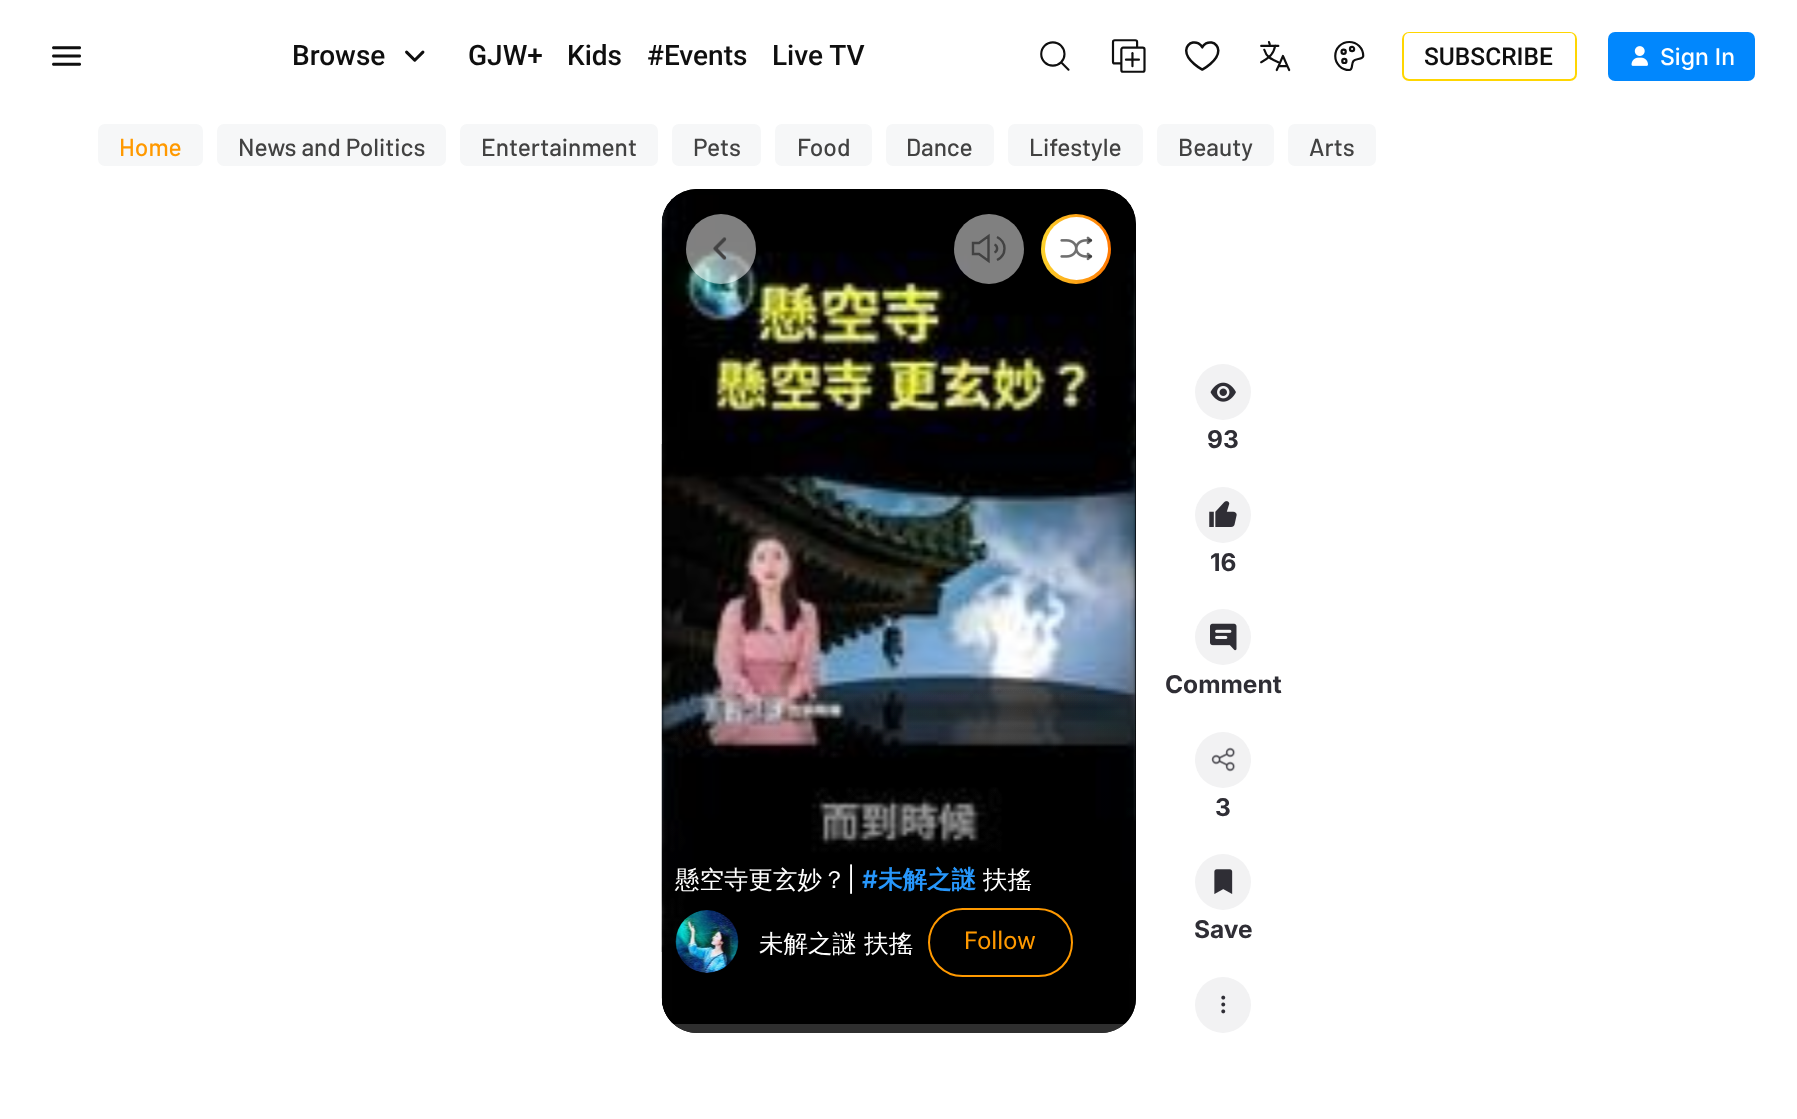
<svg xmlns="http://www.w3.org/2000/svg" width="1797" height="1119">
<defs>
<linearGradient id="g1" gradientUnits="userSpaceOnUse" x1="1434" y1="112" x2="1545" y2="-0.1"><stop offset="0.01" stop-color="#f90"/><stop offset="0.01" stop-color="#ffd600"/><stop offset="1" stop-color="#ffd601"/></linearGradient>
<linearGradient id="g2" gradientUnits="userSpaceOnUse" x1="899" y1="1033" x2="899" y2="683"><stop offset="0" stop-color="#000" stop-opacity="0.4"/><stop offset="1" stop-color="#000" stop-opacity="0"/></linearGradient>
<clipPath id="clip1"><rect x="662" y="189" width="474" height="844" rx="35"/></clipPath>
<clipPath id="clip2"><path d="M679 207h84v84h-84zm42 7c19.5 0 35 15.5 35 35c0 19.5-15.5 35-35 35c-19.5 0-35-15.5-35-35c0-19.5 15.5-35 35-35z" clip-rule="evenodd"/></clipPath>
<linearGradient id="g3" gradientUnits="userSpaceOnUse" x1="1041" y1="249" x2="1111" y2="249"><stop offset="0" stop-color="#fcd32d"/><stop offset="1" stop-color="#ff7600"/></linearGradient>
</defs>
<rect width="100%" height="100%" fill="#fff"/>
<image x="52" y="46" width="29" height="20" href="media/1.png"/>
<text x="292" y="65" style="font-family:Roboto;font-size:28px;font-weight:500;fill:#0f0f0f">Browse</text>
<image x="405" y="50" width="20" height="12" href="media/2.png"/>
<text x="468" y="65" style="font-family:Roboto;font-size:28px;font-weight:500;fill:#0f0f0f">GJW+</text>
<text x="567" y="65" style="font-family:Roboto;font-size:28px;font-weight:500;fill:#0f0f0f">Kids</text>
<text x="647" y="65" style="font-family:Roboto;font-size:28px;font-weight:500;fill:#0f0f0f">#Events</text>
<text x="772" y="65" style="font-family:Roboto;font-size:28px;font-weight:500;fill:#0f0f0f">Live TV</text>
<image x="1040" y="41" width="30" height="30" href="media/3.png"/>
<image x="1111" y="39" width="35" height="34" href="media/4.png"/>
<image x="1185" y="41" width="35" height="30" href="media/5.png"/>
<image x="1260" y="41" width="31" height="31" href="media/6.png"/>
<image x="1334" y="41" width="31" height="30" href="media/7.png"/>
<rect x="1402" y="32" width="175" height="49" rx="7" fill="url(#g1)"/>
<rect x="1404" y="33" width="171" height="46" rx="5" fill="#fff"/>
<text x="1424" y="65" style="font-family:Roboto;font-size:24.5px;font-weight:500;fill:#0f0f0f">SUBSCRIBE</text>
<rect x="1608" y="32" width="147" height="49" rx="7" fill="#0187fd"/>
<image x="1631" y="46" width="17" height="20" href="media/8.png"/>
<text x="1660" y="65" style="font-family:Inter;font-size:23px;font-weight:500;fill:#fff">Sign In</text>
<rect x="98" y="124" width="105" height="42" rx="7" fill="#f6f7f8"/>
<text x="119" y="156" style="font-family:Barlow;font-size:24.5px;font-weight:500;fill:#f90">Home</text>
<rect x="217" y="124" width="229" height="42" rx="7" fill="#f6f7f8"/>
<text x="238" y="156" style="font-family:Barlow;font-size:24.5px;font-weight:500;fill:#424242">News and Politics</text>
<rect x="460" y="124" width="198" height="42" rx="7" fill="#f6f7f8"/>
<text x="481" y="156" style="font-family:Barlow;font-size:24.5px;font-weight:500;fill:#424242">Entertainment</text>
<rect x="672" y="124" width="89" height="42" rx="7" fill="#f6f7f8"/>
<text x="693" y="156" style="font-family:Barlow;font-size:24.5px;font-weight:500;fill:#424242">Pets</text>
<rect x="775" y="124" width="97" height="42" rx="7" fill="#f6f7f8"/>
<text x="797" y="156" style="font-family:Barlow;font-size:24.5px;font-weight:500;fill:#424242">Food</text>
<rect x="886" y="124" width="108" height="42" rx="7" fill="#f6f7f8"/>
<text x="906" y="156" style="font-family:Barlow;font-size:24.5px;font-weight:500;fill:#424242">Dance</text>
<rect x="1008" y="124" width="135" height="42" rx="7" fill="#f6f7f8"/>
<text x="1029" y="156" style="font-family:Barlow;font-size:24.5px;font-weight:500;fill:#424242">Lifestyle</text>
<rect x="1157" y="124" width="117" height="42" rx="7" fill="#f6f7f8"/>
<text x="1178" y="156" style="font-family:Barlow;font-size:24.5px;font-weight:500;fill:#424242">Beauty</text>
<rect x="1288" y="124" width="88" height="42" rx="7" fill="#f6f7f8"/>
<text x="1309" y="156" style="font-family:Barlow;font-size:24.5px;font-weight:500;fill:#424242">Arts</text>
<image x="662" y="189" width="474" height="844" href="media/10.png"/>
<rect x="662" y="189" width="474" height="844" rx="35" fill="#000"/>
<image x="661" y="195" width="475" height="821" href="media/9.png"/>
<path d="M662 683h474v315c0 19.5-15.5 35-35 35h-404c-19.5 0-35-15.5-35-35z" fill="url(#g2)"/>
<path d="M662 683h474v315c0 19.5-15.5 35-35 35h-404c-19.5 0-35-15.5-35-35z" fill="url(#g2)"/>
<g clip-path="url(#clip1)">
<rect x="662" y="1024" width="474" height="9" rx="4" fill="#ffffff4d"/>
</g>
<path d="M662 683h474v315c0 19.5-15.5 35-35 35h-404c-19.5 0-35-15.5-35-35z" fill="url(#g2)"/>
<g clip-path="url(#clip2)">
<rect x="686" y="214" width="70" height="70" rx="35" fill="#00000040" filter="blur(2px)"/>
</g>
<circle cx="721" cy="249" r="35" fill="#ffffff80"/>
<image x="713" y="237" width="14" height="23" href="media/11.png"/>
<circle cx="989" cy="249" r="35" fill="#ffffff80"/>
<path d="M994.5 244.5c3.5 1.5 3.5 6.5 0 8m2.5-15.5c10 5 10 18 0 23m-24-17v11h6l9.5 7v-25l-9.5 7z" fill="none" stroke="#424242" stroke-width="2.4"/>
<circle cx="1076" cy="249" r="35" fill="url(#g3)"/>
<circle cx="1076.5" cy="248.5" r="31.5" fill="#fff"/>
<image x="1060" y="236" width="33" height="25" href="media/12.png"/>
<text x="675" y="888" style="font-family:WenQuanYi Zen Hei;font-size:24.5px;font-weight:500;fill:#fff">懸空寺更玄妙？</text>
<text x="847" y="888" style="font-family:Inter;font-size:24.5px;fill:#fff">|</text>
<text x="862" y="888" style="font-family:Inter;font-size:24.5px;font-weight:600;fill:#2797fc">#</text>
<text x="878" y="888" style="font-family:WenQuanYi Zen Hei;font-size:24.5px;font-weight:bold;fill:#2797fc">未解之謎</text>
<text x="983" y="888" style="font-family:WenQuanYi Zen Hei;font-size:24.5px;font-weight:500;fill:#fff">扶搖</text>
<image x="675" y="910" width="64" height="63" href="media/13.png"/>
<text x="759" y="952" style="font-family:WenQuanYi Zen Hei;font-size:24.5px;font-weight:500;fill:#fff">未解之謎 扶搖</text>
<rect x="929" y="909" width="143" height="67" rx="33.5" fill="none" stroke="#f90" stroke-width="2"/>
<text x="964" y="949" style="font-family:Roboto;font-size:24.5px;fill:#f90">Follow</text>
<circle cx="1223" cy="392" r="28" fill="#f2f2f3"/>
<image x="1210" y="382" width="26" height="20" href="media/14.png"/>
<text x="1207" y="448" style="font-family:Inter;font-size:24.5px;font-weight:bold;fill:#2f2e35">93</text>
<circle cx="1223" cy="515" r="28" fill="#f2f2f3"/>
<image x="1209" y="501" width="28" height="26" href="media/15.png"/>
<text x="1210" y="571" style="font-family:Inter;font-size:24.5px;font-weight:bold;fill:#2f2e35">16</text>
<circle cx="1223" cy="637" r="28" fill="#f2f2f3"/>
<image x="1210" y="623" width="27" height="28" href="media/16.png"/>
<text x="1165" y="693" style="font-family:Inter;font-size:24.5px;font-weight:bold;fill:#2f2e35">Comment</text>
<circle cx="1223" cy="760" r="28" fill="#f2f2f3"/>
<image x="1211" y="747" width="25" height="25" href="media/17.png"/>
<text x="1215" y="816" style="font-family:Inter;font-size:24.5px;font-weight:bold;fill:#2f2e35">3</text>
<circle cx="1223" cy="882" r="28" fill="#f2f2f3"/>
<image x="1214" y="869" width="19" height="25" href="media/18.png"/>
<text x="1194" y="938" style="font-family:Inter;font-size:24.5px;font-weight:bold;fill:#2f2e35">Save</text>
<circle cx="1223" cy="1005" r="28" fill="#f2f2f3"/>
<image x="1221" y="995" width="5" height="19" href="media/19.png"/>
</svg>
